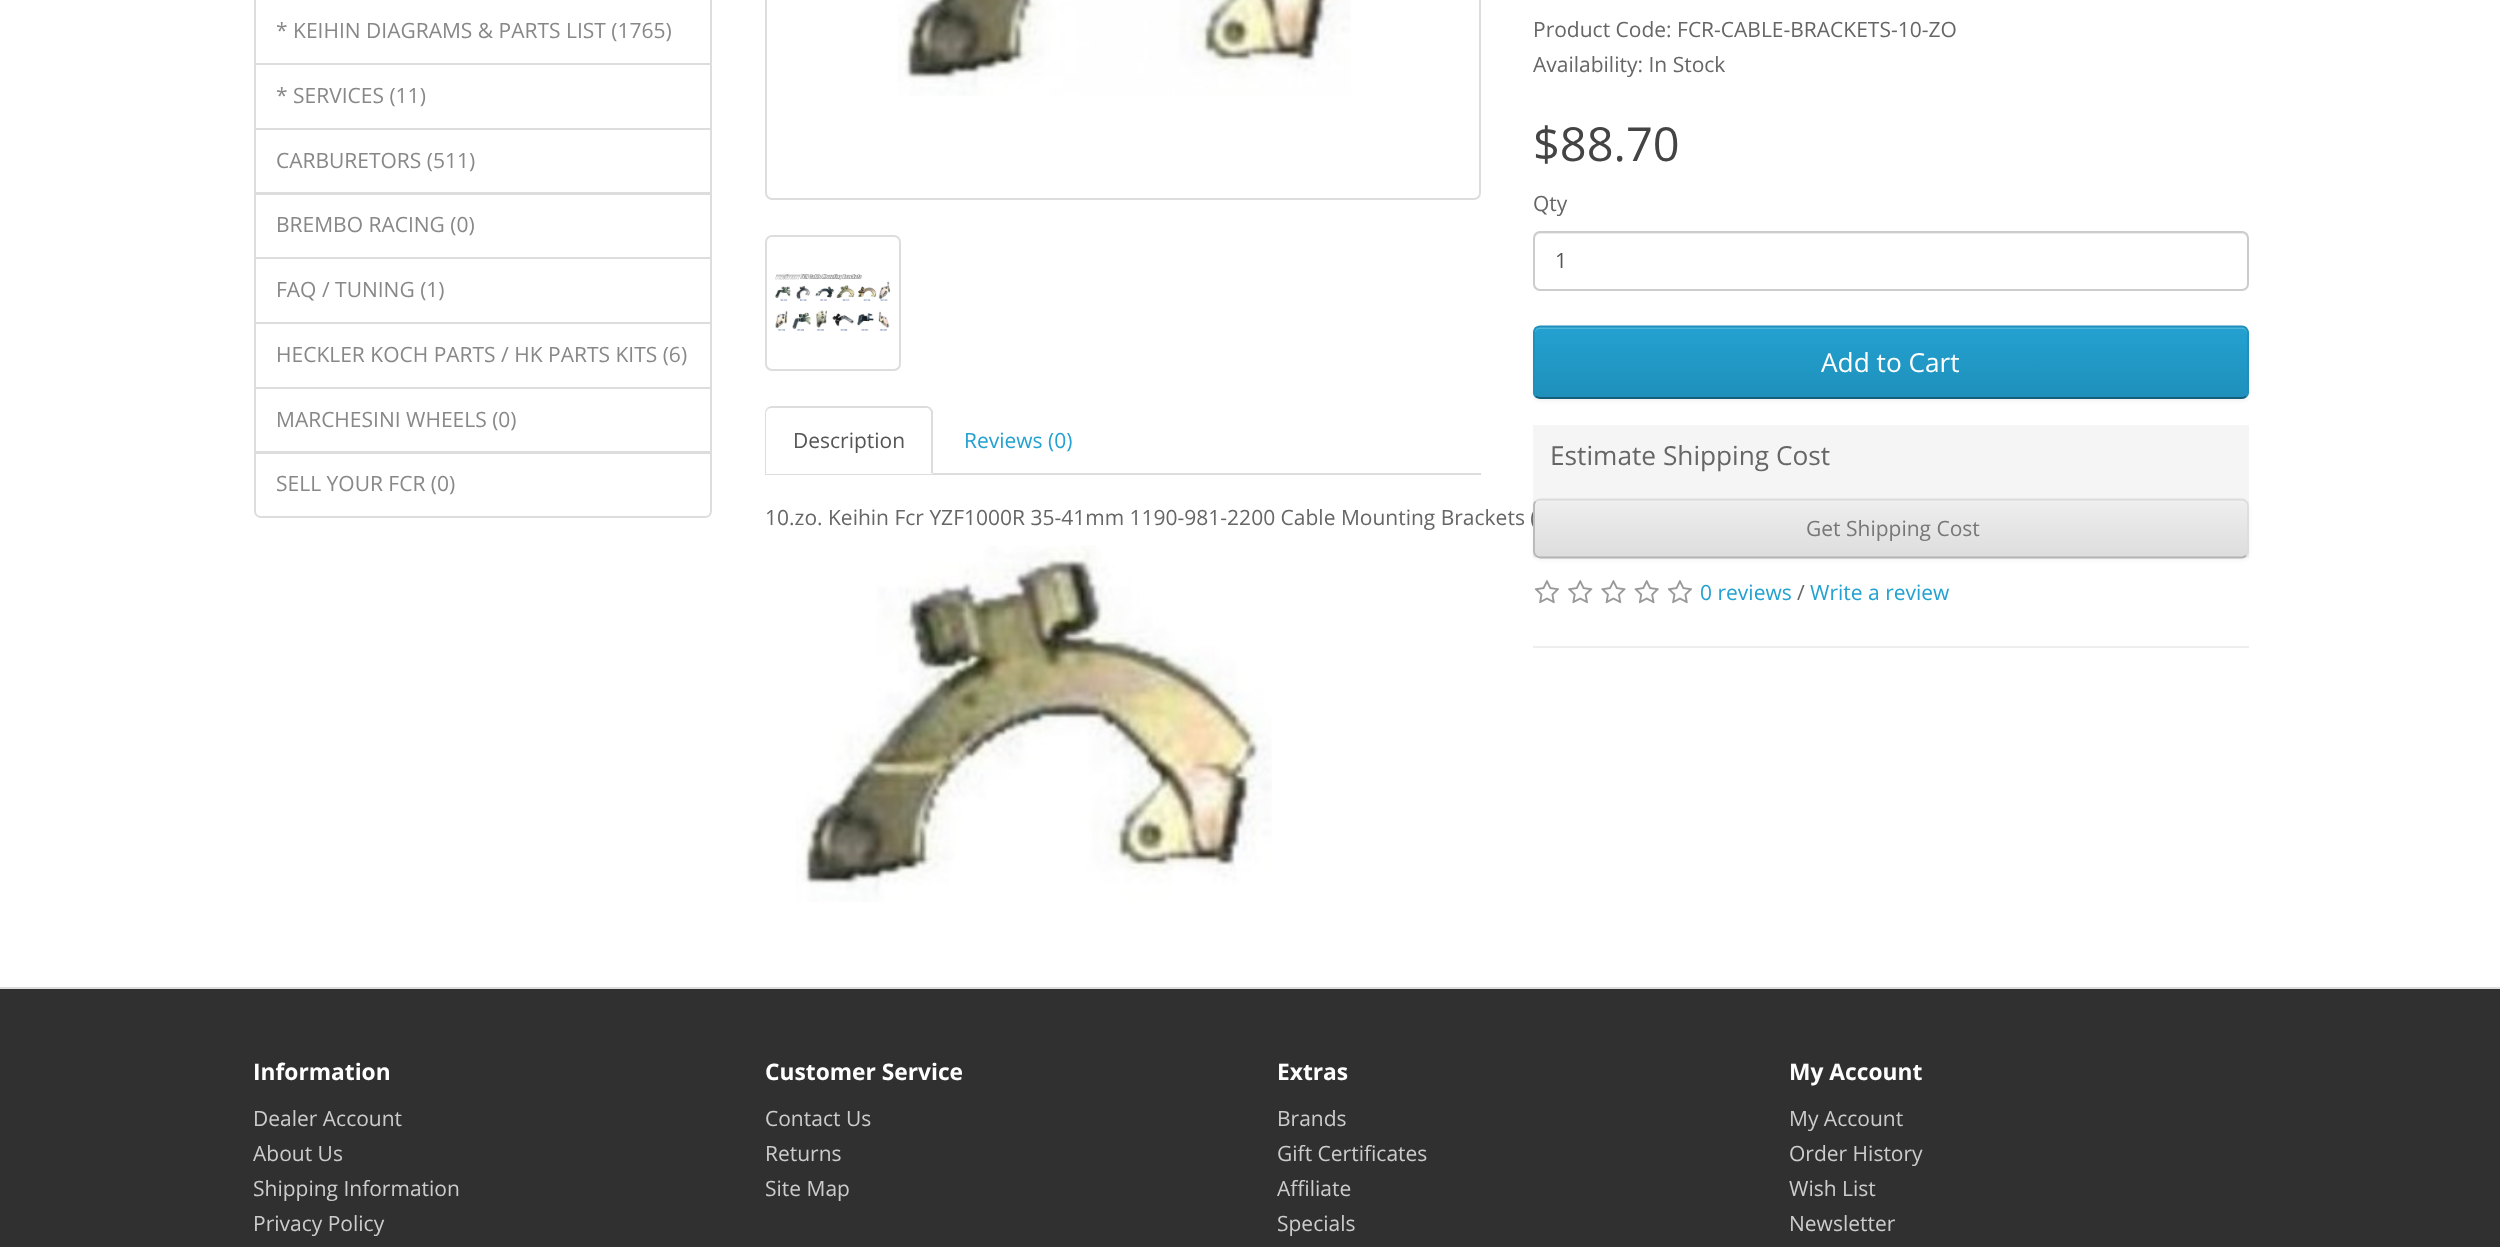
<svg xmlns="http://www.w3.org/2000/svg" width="2500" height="1247">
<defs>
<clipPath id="clip1"><rect x="1533" y="326" width="716" height="73" rx="7"/></clipPath>
<linearGradient id="g1" gradientUnits="userSpaceOnUse" x1="1891" y1="327" x2="1891" y2="397"><stop offset="0" stop-color="#23a1d1"/><stop offset="1" stop-color="#1f90bb"/></linearGradient>
<clipPath id="clip2"><rect x="1533" y="499" width="716" height="59" rx="7"/></clipPath>
<linearGradient id="g2" gradientUnits="userSpaceOnUse" x1="1891" y1="501" x2="1891" y2="557"><stop offset="0" stop-color="#eee"/><stop offset="1" stop-color="#ddd"/></linearGradient>
</defs>
<rect width="100%" height="100%" fill="#fff"/>
<rect x="255" y="-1" width="456" height="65" fill="none" stroke="#ddd" stroke-width="2"/>
<text x="276" y="38" style="font-family:Open Sans;font-size:21px;fill:#888">* KEIHIN DIAGRAMS &amp; PARTS LIST (1765)</text>
<rect x="255" y="64" width="456" height="65" fill="none" stroke="#ddd" stroke-width="2"/>
<text x="276" y="103" style="font-family:Open Sans;font-size:21px;fill:#888">* SERVICES (11)</text>
<rect x="255" y="129" width="456" height="64" fill="none" stroke="#ddd" stroke-width="2"/>
<text x="276" y="168" style="font-family:Open Sans;font-size:21px;fill:#888">CARBURETORS (511)</text>
<rect x="255" y="194" width="456" height="64" fill="none" stroke="#ddd" stroke-width="2"/>
<text x="276" y="232" style="font-family:Open Sans;font-size:21px;fill:#888">BREMBO RACING (0)</text>
<rect x="255" y="258" width="456" height="65" fill="none" stroke="#ddd" stroke-width="2"/>
<text x="276" y="297" style="font-family:Open Sans;font-size:21px;fill:#888">FAQ / TUNING (1)</text>
<rect x="255" y="323" width="456" height="65" fill="none" stroke="#ddd" stroke-width="2"/>
<text x="276" y="362" style="font-family:Open Sans;font-size:21px;fill:#888">HECKLER KOCH PARTS / HK PARTS KITS (6)</text>
<rect x="255" y="388" width="456" height="64" fill="none" stroke="#ddd" stroke-width="2"/>
<text x="276" y="427" style="font-family:Open Sans;font-size:21px;fill:#888">MARCHESINI WHEELS (0)</text>
<path d="M255 453h456v58c0 3.5-2.5 6-6 6h-444c-3.5 0-6-2.5-6-6z" fill="#fff" stroke="#ddd" stroke-width="2"/>
<text x="276" y="491" style="font-family:Open Sans;font-size:21px;fill:#888">SELL YOUR FCR (0)</text>
<rect x="766" y="-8" width="714" height="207" rx="6" fill="none" stroke="#ddd" stroke-width="2"/>
<image x="898" y="0" width="453" height="96" href="media/1.png"/>
<rect x="766" y="236" width="134" height="134" rx="6" fill="none" stroke="#ddd" stroke-width="2"/>
<image x="775" y="273" width="116" height="58" href="media/2.png"/>
<rect x="765" y="473" width="716" height="2" fill="#ddd"/>
<path d="M772 406h154c4 0 7 3 7 7v61h-168v-61c0-4 3-7 7-7z" fill="#fff"/>
<path d="M772 406c-2 0-4 1-5 2l1 1c1-1 3-1 4-1h154c1 0 3 0 3 1l2-1c-1-1-3-2-5-2z" fill="#ddd"/>
<path d="M933 474l-3-2h1v-59c0-2-1-3-2-4l2-1l2 3z" fill="#ddd"/>
<path d="M767 408c-1 1-2 3-2 5v61l2-2h-1v-60l2-3z" fill="#ddd"/>
<text x="793" y="448" style="font-family:Open Sans;font-size:21px;fill:#555">Description</text>
<text x="964" y="448" style="font-family:Open Sans;font-size:21px;fill:#23a1d1">Reviews (0)</text>
<text x="765" y="525" style="font-family:Open Sans;font-size:21px;fill:#666">10.zo. Keihin Fcr YZF1000R 35-41mm 1190-981-2200 Cable Mounting Brackets (</text>
<image x="796" y="545" width="476" height="357" href="media/3.png"/>
<text x="1533" y="37" style="font-family:Open Sans;font-size:21px;fill:#666">Product Code: FCR-CABLE-BRACKETS-10-ZO</text>
<text x="1533" y="72" style="font-family:Open Sans;font-size:21px;fill:#666">Availability: In Stock</text>
<text x="1533" y="161" style="font-family:Open Sans;font-size:47px;fill:#444">$88.70</text>
<text x="1533" y="211" style="font-family:Open Sans;font-size:21px;fill:#666">Qty</text>
<path d="M1540 234h702c3 0 5 3 5 6v-2c0-3-2-5-5-5h-702c-3 0-5 2-5 5v2c0-3 2-6 5-6z" fill="#ececec"/>
<rect x="1534" y="232" width="714" height="58" rx="6" fill="none" stroke="#ccc" stroke-width="2"/>
<text x="1555" y="268" style="font-family:Open Sans;font-size:21px;fill:#555">1</text>
<rect x="1533" y="327" width="716" height="74" rx="7" fill="#0000000d" filter="blur(2px)"/>
<g clip-path="url(#clip1)">
<rect x="1533" y="327" width="716" height="70" fill="url(#g1)"/>
</g>
<path d="M1540 329h702c3 0 5 2 5 5v-2c0-3-2-5-5-5h-702c-3 0-5 2-5 5v2c0-3 2-5 5-5z" fill="#4fb4da"/>
<path d="M2246 396.5c-1 1-2.5 1.5-4 1.5h-702c-1.5 0-3-.5-4.5-1.5" fill="none" stroke="#145e7a" stroke-width="1.8"/>
<path d="M1535.5 396.5c-1-1.5-1.5-3-1.5-4.5v-59.5c0-1.5 .5-3 1.5-4.5c1.5-1 3-1.5 4.5-1.5h702c1.5 0 3 .5 4 1.5c1 1.5 2 3 2 4.5v59.5c0 1.5-1 3-2 4.5" fill="none" stroke="#1f90bb" stroke-width="1.8"/>
<text x="1821" y="372" style="font-family:Open Sans;font-size:26.25px;fill:#fff">Add to Cart</text>
<rect x="1533" y="425" width="716" height="133" fill="#f5f5f5"/>
<text x="1550" y="465" style="font-family:Open Sans;font-size:26.25px;fill:#666">Estimate Shipping Cost</text>
<rect x="1533" y="501" width="716" height="59" rx="7" fill="#0000000d" filter="blur(2px)"/>
<rect x="1533" y="499" width="716" height="59" rx="7" fill="#e7e7e7"/>
<g clip-path="url(#clip2)">
<rect x="1533" y="501" width="716" height="56" fill="url(#g2)"/>
</g>
<path d="M1540 502h702c3 0 5 3 5 6v-2c0-3-2-5-5-5h-702c-3 0-5 2-5 5v2c0-3 2-6 5-6z" fill="#f1f1f1"/>
<path d="M1535.5 501.5c1.5-1 3-2 4.5-2h702c1.5 0 3 1 4 2c1 1 2 2.5 2 4.5v45c0 2-1 3.5-2 4.5" fill="none" stroke="#ddd" stroke-width="1.8"/>
<path d="M2246 555.5c-1 1-2.5 2-4 2h-702c-1.5 0-3-1-4.5-2" fill="none" stroke="#b3b3b3" stroke-width="1.8"/>
<path d="M1535.5 555.5c-1-1-1.5-2.5-1.5-4.5v-45c0-2 .5-3.5 1.5-4.5" fill="none" stroke="#b7b7b7" stroke-width="1.8"/>
<text x="1806" y="536" style="font-family:Open Sans;font-size:21px;fill:#777">Get Shipping Cost</text>
<image x="1534" y="580" width="25" height="24" href="media/4.png"/>
<image x="1568" y="580" width="25" height="24" href="media/5.png"/>
<image x="1601" y="580" width="25" height="24" href="media/6.png"/>
<image x="1634" y="580" width="25" height="24" href="media/7.png"/>
<image x="1667" y="580" width="25" height="24" href="media/4.png"/>
<text x="1700" y="600" style="font-family:Open Sans;font-size:21px;fill:#23a1d1">0 reviews</text>
<text x="1797" y="600" style="font-family:Open Sans;font-size:21px;fill:#666">/</text>
<text x="1810" y="600" style="font-family:Open Sans;font-size:21px;fill:#23a1d1">Write a review</text>
<rect x="1533" y="646" width="716" height="2" fill="#eee"/>
<rect y="989" width="2500" height="258" fill="#303030"/>
<rect y="987" width="2500" height="2" fill="#ddd"/>
<text x="253" y="1080" style="font-family:Open Sans;font-size:22.75px;font-weight:bold;fill:#fff">Information</text>
<text x="253" y="1126" style="font-family:Open Sans;font-size:21px;fill:#ccc">Dealer Account</text>
<text x="253" y="1161" style="font-family:Open Sans;font-size:21px;fill:#ccc">About Us</text>
<text x="253" y="1196" style="font-family:Open Sans;font-size:21px;fill:#ccc">Shipping Information</text>
<text x="253" y="1231" style="font-family:Open Sans;font-size:21px;fill:#ccc">Privacy Policy</text>
<text x="765" y="1080" style="font-family:Open Sans;font-size:22.75px;font-weight:bold;fill:#fff">Customer Service</text>
<text x="765" y="1126" style="font-family:Open Sans;font-size:21px;fill:#ccc">Contact Us</text>
<text x="765" y="1161" style="font-family:Open Sans;font-size:21px;fill:#ccc">Returns</text>
<text x="765" y="1196" style="font-family:Open Sans;font-size:21px;fill:#ccc">Site Map</text>
<text x="1277" y="1080" style="font-family:Open Sans;font-size:22.75px;font-weight:bold;fill:#fff">Extras</text>
<text x="1277" y="1126" style="font-family:Open Sans;font-size:21px;fill:#ccc">Brands</text>
<text x="1277" y="1161" style="font-family:Open Sans;font-size:21px;fill:#ccc">Gift Certificates</text>
<text x="1277" y="1196" style="font-family:Open Sans;font-size:21px;fill:#ccc">Affiliate</text>
<text x="1277" y="1231" style="font-family:Open Sans;font-size:21px;fill:#ccc">Specials</text>
<text x="1789" y="1080" style="font-family:Open Sans;font-size:22.75px;font-weight:bold;fill:#fff">My Account</text>
<text x="1789" y="1126" style="font-family:Open Sans;font-size:21px;fill:#ccc">My Account</text>
<text x="1789" y="1161" style="font-family:Open Sans;font-size:21px;fill:#ccc">Order History</text>
<text x="1789" y="1196" style="font-family:Open Sans;font-size:21px;fill:#ccc">Wish List</text>
<text x="1789" y="1231" style="font-family:Open Sans;font-size:21px;fill:#ccc">Newsletter</text>
</svg>
